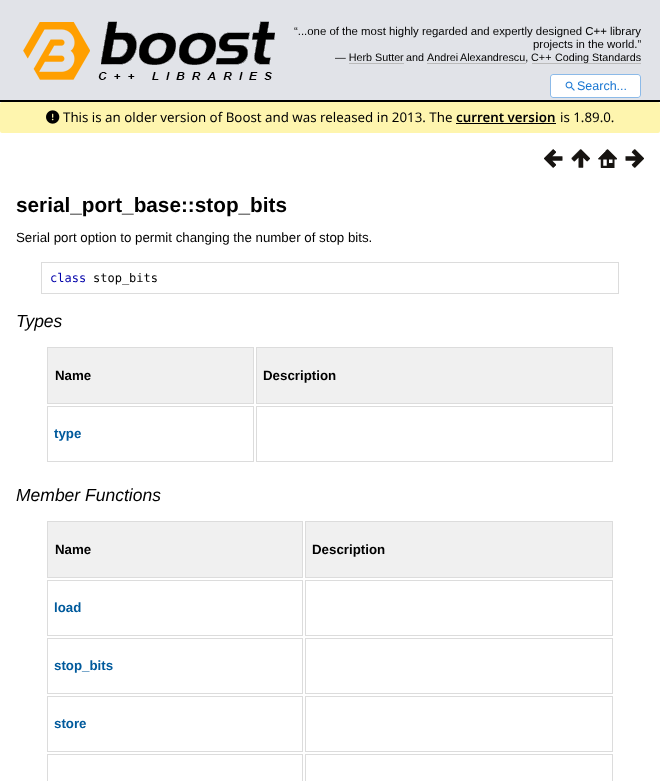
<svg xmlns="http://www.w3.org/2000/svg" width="660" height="781">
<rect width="100%" height="100%" fill="#fff"/>
<rect width="660" height="100" fill="#e1e3e8"/>
<rect y="100" width="660" height="2" fill="#000"/>
<image x="23" y="21" width="252" height="59" href="media/1.png"/>
<text x="294" y="35" style="font-family:Liberation Sans;font-size:11.4px;fill:#000">“...one of the most highly regarded and expertly designed C++ library</text>
<text x="533" y="48" style="font-family:Liberation Sans;font-size:11.4px;fill:#000">projects in the world.”</text>
<text x="335" y="61" style="font-family:Liberation Sans;font-size:10.75px;fill:#000">— Herb Sutter</text>
<text x="406" y="61" style="font-family:Liberation Sans;font-size:10.75px;fill:#000">and</text>
<text x="427" y="61" style="font-family:Liberation Sans;font-size:10.75px;fill:#000">Andrei</text>
<text x="460" y="61" style="font-family:Liberation Sans;font-size:10.75px;fill:#000">Alexandrescu, C++</text>
<rect x="427" y="63" width="99" height="1" fill="#bbb"/>
<rect x="532" y="63" width="109" height="1" fill="#bbb"/>
<text x="555" y="61" style="font-family:Liberation Sans;font-size:10.75px;fill:#000">Coding Standards</text>
<rect x="349" y="63" width="55" height="1" fill="#bbb"/>
<rect x="550" y="74" width="91" height="24" rx="3" fill="#fff"/>
<rect x="550.5" y="74.5" width="90" height="23" rx="2.5" fill="none" stroke="#1976d280"/>
<image x="565" y="81" width="10" height="10" href="media/2.png"/>
<text x="577" y="90" style="font-family:Liberation Sans;font-size:12.5px;fill:#1976d2">Search...</text>
<rect y="102" width="660" height="31" rx="2" fill="#fef5ae"/>
<image x="46" y="110" width="14" height="14" href="media/3.png"/>
<text x="63" y="122" style="font-family:Noto Sans;font-size:13.3px;fill:#000">This is an older version of Boost and was released in 2013. The</text>
<text x="456" y="122" style="font-family:Noto Sans;font-size:13.3px;font-weight:600;fill:#000">current version</text>
<rect x="456" y="123" width="100" height="1" fill="#000"/>
<text x="560" y="122" style="font-family:Noto Sans;font-size:13.3px;fill:#000">is 1.89.0.</text>
<image x="544" y="149" width="19" height="19" href="media/4.png"/>
<image x="571" y="149" width="19" height="19" href="media/5.png"/>
<image x="598" y="149" width="19" height="19" href="media/6.png"/>
<image x="625" y="149" width="19" height="19" href="media/7.png"/>
<text x="16" y="212" style="font-family:Liberation Sans;font-size:20.75px;font-weight:bold;fill:#000">serial_port_base::stop_bits</text>
<text x="16" y="242" style="font-family:Liberation Sans;font-size:13.3px;fill:#000">Serial port option to permit changing the number of stop bits.</text>
<rect x="41.5" y="262.5" width="577" height="31" fill="none" stroke="#dcdcdc"/>
<text x="50" y="282" style="font-family:DejaVu Sans Mono;font-size:12px;fill:#00a">class</text>
<text x="93" y="282" style="font-family:DejaVu Sans Mono;font-size:12px;fill:#000">stop_bits</text>
<text x="16" y="327" style="font-family:Liberation Sans;font-size:17.5px;font-style:italic;fill:#000">Types</text>
<rect x="47.5" y="347.5" width="206" height="56" fill="#f0f0f0" stroke="#dcdcdc"/>
<text x="55" y="380" style="font-family:Liberation Sans;font-size:13.3px;font-weight:bold;fill:#000">Name</text>
<rect x="256.5" y="347.5" width="356" height="56" fill="#f0f0f0" stroke="#dcdcdc"/>
<text x="263" y="380" style="font-family:Liberation Sans;font-size:13.3px;font-weight:bold;fill:#000">Description</text>
<rect x="47.5" y="406.5" width="206" height="55" fill="none" stroke="#dcdcdc"/>
<text x="54" y="438" style="font-family:Liberation Sans;font-size:13.3px;font-weight:bold;fill:#005a9c">type</text>
<rect x="256.5" y="406.5" width="356" height="55" fill="none" stroke="#dcdcdc"/>
<text x="16" y="501" style="font-family:Liberation Sans;font-size:17.5px;font-style:italic;fill:#000">Member Functions</text>
<rect x="47.5" y="521.5" width="255" height="56" fill="#f0f0f0" stroke="#dcdcdc"/>
<text x="55" y="554" style="font-family:Liberation Sans;font-size:13.3px;font-weight:bold;fill:#000">Name</text>
<rect x="305.5" y="521.5" width="307" height="56" fill="#f0f0f0" stroke="#dcdcdc"/>
<text x="312" y="554" style="font-family:Liberation Sans;font-size:13.3px;font-weight:bold;fill:#000">Description</text>
<rect x="47.5" y="580.5" width="255" height="55" fill="none" stroke="#dcdcdc"/>
<text x="54" y="612" style="font-family:Liberation Sans;font-size:13.3px;font-weight:bold;fill:#005a9c">load</text>
<rect x="305.5" y="580.5" width="307" height="55" fill="none" stroke="#dcdcdc"/>
<rect x="47.5" y="638.5" width="255" height="55" fill="none" stroke="#dcdcdc"/>
<text x="54" y="670" style="font-family:Liberation Sans;font-size:13.3px;font-weight:bold;fill:#005a9c">stop_bits</text>
<rect x="305.5" y="638.5" width="307" height="55" fill="none" stroke="#dcdcdc"/>
<rect x="47.5" y="696.5" width="255" height="55" fill="none" stroke="#dcdcdc"/>
<text x="54" y="728" style="font-family:Liberation Sans;font-size:13.3px;font-weight:bold;fill:#005a9c">store</text>
<rect x="305.5" y="696.5" width="307" height="55" fill="none" stroke="#dcdcdc"/>
<rect x="47.5" y="754.5" width="255" height="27" fill="none" stroke="#dcdcdc"/>
<rect x="305.5" y="754.5" width="307" height="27" fill="none" stroke="#dcdcdc"/>
</svg>
